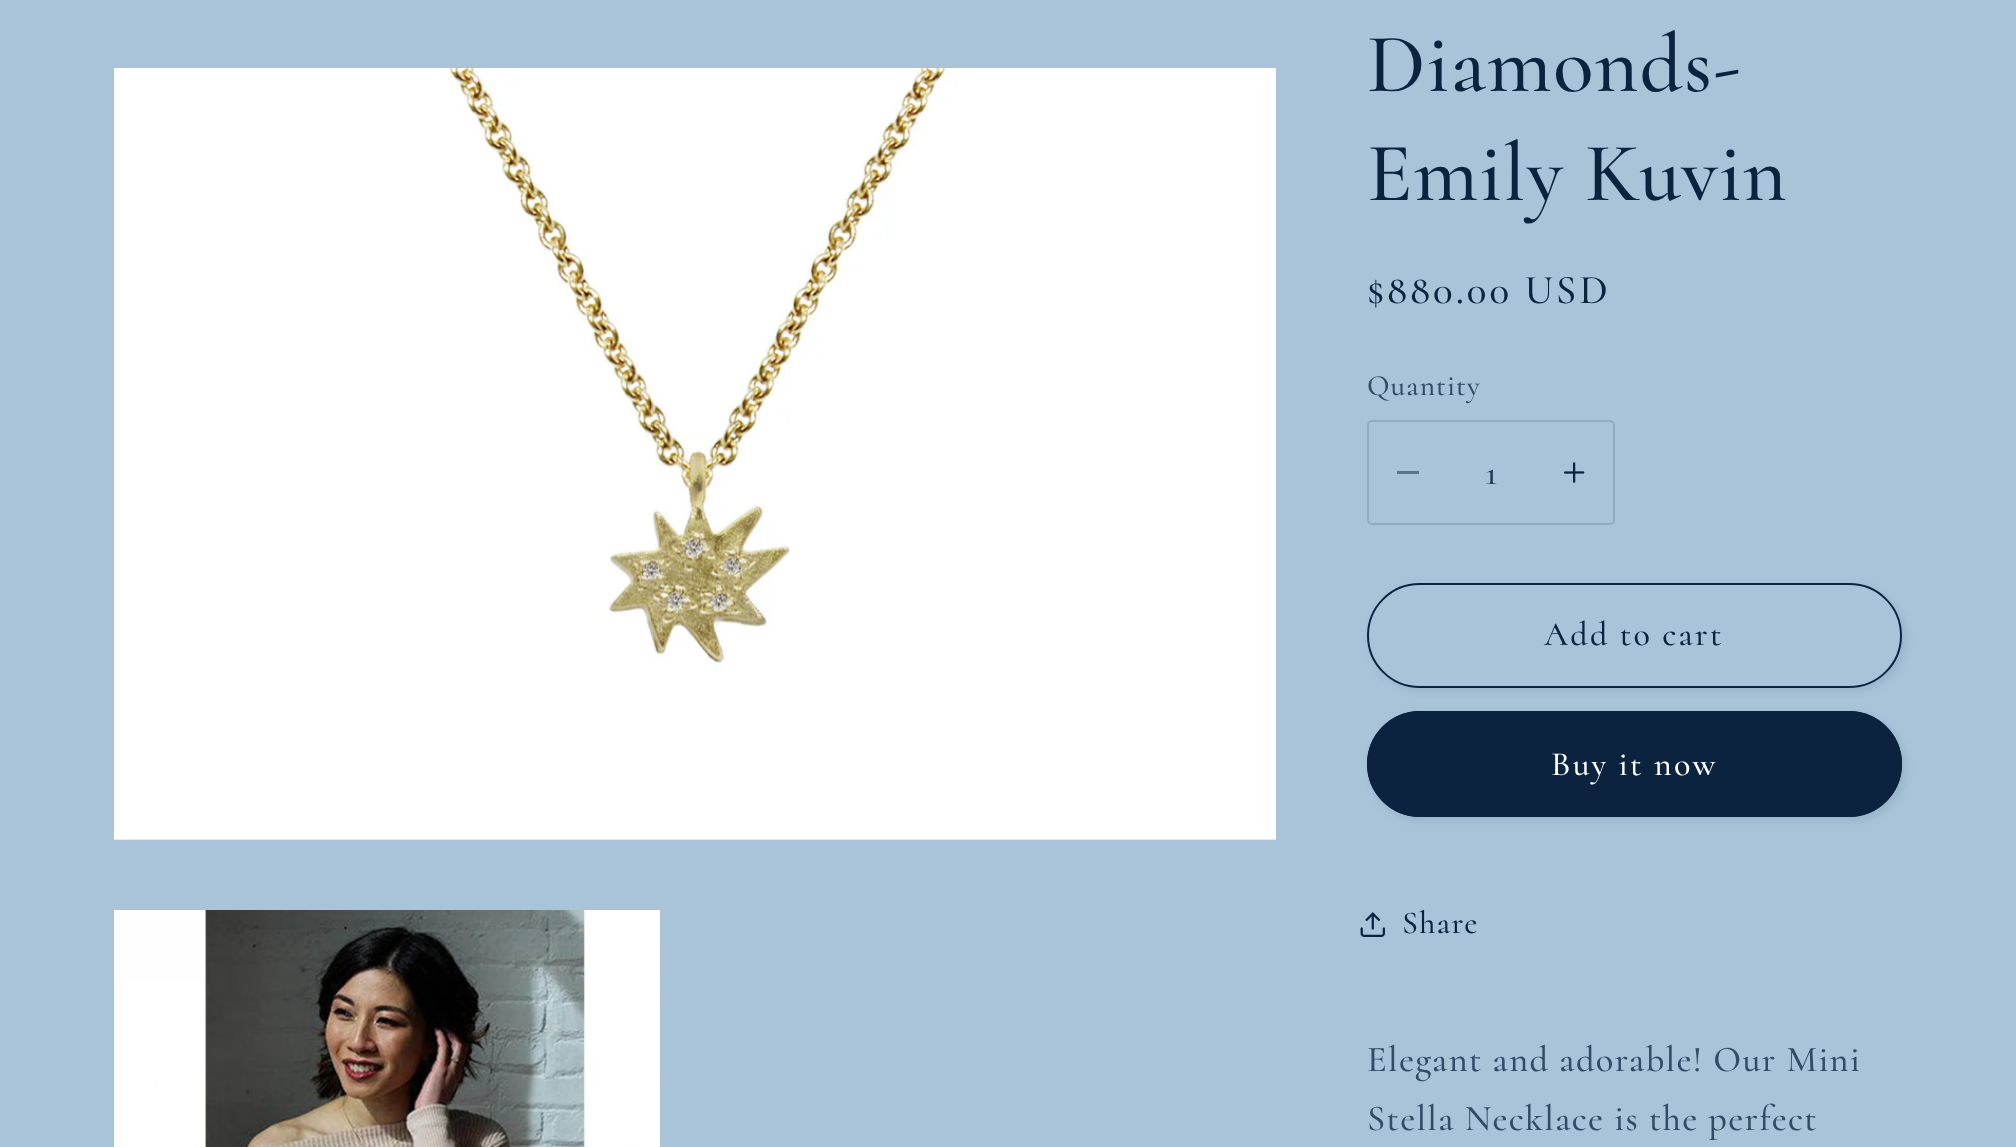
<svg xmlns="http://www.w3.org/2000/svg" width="2016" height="1147">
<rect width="100%" height="100%" fill="#a9c4d9"/>
<image x="114" y="68" width="1162" height="772" href="media/1.png"/>
<image x="114" y="910" width="546" height="237" href="media/2.png"/>
<text x="1367" y="91" style="font-family:Cormorant;font-size:84px;font-weight:500;letter-spacing:1.25px;fill:#0c2340">Diamonds-</text>
<text x="1367" y="200" style="font-family:Cormorant;font-size:84px;font-weight:500;letter-spacing:1.25px;fill:#0c2340">Emily Kuvin</text>
<text x="1367" y="303" style="font-family:Cormorant;font-size:41px;font-weight:500;letter-spacing:3px;fill:#0c2340">$880.00 USD</text>
<text x="1367" y="395" style="font-family:Cormorant;font-size:29.5px;font-weight:500;letter-spacing:1px;fill:#334b66">Quantity</text>
<rect x="1397" y="471" width="22" height="3" fill="#5b748d"/>
<image x="1563" y="462" width="22" height="21" href="media/3.png"/>
<rect x="1368" y="421" width="246" height="103" rx="4" fill="none" stroke="#91acc2" stroke-width="2"/>
<text x="1485" y="484" style="font-family:Cormorant;font-size:36.4px;font-weight:500;fill:#243b57">1</text>
<rect x="1370" y="586" width="536" height="105" rx="52.5" fill="#0c23401a" filter="blur(4.5px)"/>
<rect x="1367" y="583" width="535" height="105" rx="52.5" fill="#a9c4d9"/>
<rect x="1368" y="584" width="533" height="103" rx="51.5" fill="none" stroke="#a9c4d9" stroke-width="2"/>
<rect x="1368" y="584" width="533" height="103" rx="51.5" fill="none" stroke="#0c2340" stroke-width="2"/>
<text x="1544" y="645" style="font-family:Cormorant;font-size:34px;font-weight:500;letter-spacing:2.25px;fill:#0c2340">Add to cart</text>
<rect x="1370" y="714" width="536" height="107" rx="53.5" fill="#0c23401a" filter="blur(4.5px)"/>
<rect x="1367" y="711" width="535" height="106" rx="53" fill="#0c2340"/>
<rect x="1368" y="712" width="533" height="104" rx="52" fill="none" stroke="#0c2340" stroke-width="2"/>
<text x="1551" y="775" style="font-family:Cormorant;font-size:34px;font-weight:500;letter-spacing:2.25px;fill:#fff">Buy it now</text>
<image x="1360" y="912" width="25" height="25" href="media/4.png"/>
<text x="1402" y="933" style="font-family:Cormorant;font-size:32px;font-weight:500;letter-spacing:1.35px;fill:#0c2340">Share</text>
<text x="1367" y="1071" style="font-family:Cormorant;font-size:36.4px;font-weight:500;letter-spacing:1.35px;fill:#334b66">Elegant and adorable! Our Mini</text>
<text x="1367" y="1130" style="font-family:Cormorant;font-size:36.4px;font-weight:500;letter-spacing:1.35px;fill:#334b66">Stella Necklace is the perfect</text>
</svg>
